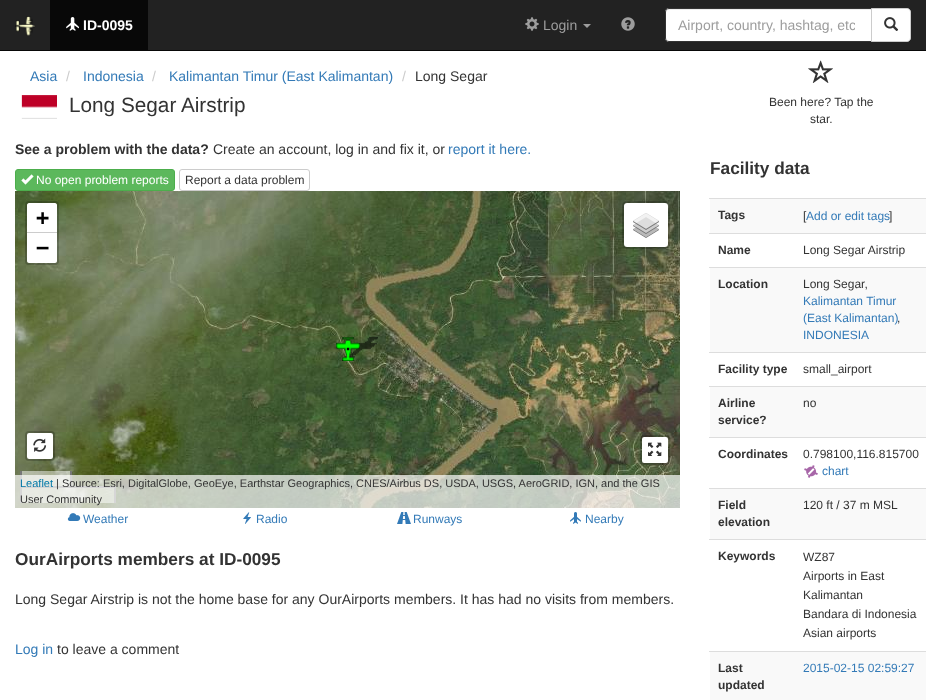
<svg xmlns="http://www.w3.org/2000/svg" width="926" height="700">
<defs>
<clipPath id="clip1"><rect x="678" y="17" width="177" height="16"/></clipPath>
</defs>
<rect width="100%" height="100%" fill="#fff"/>
<rect width="926" height="50" fill="#222"/>
<rect y="50" width="926" height="1" fill="#080808"/>
<image x="15" y="16" width="20" height="20" href="media/1.png"/>
<rect x="50" width="98" height="50" fill="#080808"/>
<image x="66" y="17" width="13" height="14" href="media/2.png"/>
<text x="83" y="30" style="font-family:Liberation Sans;font-size:14px;font-weight:bold;fill:#fff">ID-0095</text>
<image x="525" y="17" width="14" height="14" href="media/3.png"/>
<text x="543" y="30" style="font-family:Liberation Sans;font-size:14px;fill:#9d9d9d">Login</text>
<path d="M583 24h8l-4 4z" fill="#9d9d9d"/>
<image x="621" y="17" width="14" height="14" href="media/4.png"/>
<path d="M669 8h203v34h-203c-2 0-4-2-4-4v-26c0-2 2-4 4-4z" fill="#fff"/>
<path d="M669 10h202v-1h-203c-2 1-2 2-2 4c0-2 1-3 3-3z" fill="#ececec"/>
<path d="M669 8.5h202.5v33h-202.5c-2 0-3.5-1.5-3.5-3.5v-26c0-2 1.5-3.5 3.5-3.5z" fill="none" stroke="#333"/>
<g clip-path="url(#clip1)">
<text x="678" y="30" style="font-family:Liberation Sans;font-size:14px;fill:#9d9d9d">Airport, country, hashtag, etc</text>
</g>
<path d="M871.5 8.5h35.5c2 0 3.5 1.5 3.5 3.5v26c0 2-1.5 3.5-3.5 3.5h-35.5z" fill="#fff" stroke="#ccc"/>
<image x="884" y="17" width="15" height="14" href="media/5.png"/>
<text x="30" y="81" style="font-family:Liberation Sans;font-size:14px;fill:#337ab7">Asia</text>
<text x="66" y="81" style="font-family:Liberation Sans;font-size:14px;fill:#ccc">/</text>
<text x="83" y="81" style="font-family:Liberation Sans;font-size:14px;fill:#337ab7">Indonesia</text>
<text x="152" y="81" style="font-family:Liberation Sans;font-size:14px;fill:#ccc">/</text>
<text x="169" y="81" style="font-family:Liberation Sans;font-size:14px;fill:#337ab7">Kalimantan Timur (East Kalimantan)</text>
<text x="402" y="81" style="font-family:Liberation Sans;font-size:14px;fill:#ccc">/</text>
<text x="415" y="81" style="font-family:Liberation Sans;font-size:14px;fill:#333">Long Segar</text>
<image x="21" y="95" width="36" height="24" href="media/6.png"/>
<text x="69" y="112" style="font-family:Liberation Sans;font-size:20.75px;fill:#333">Long Segar Airstrip</text>
<image x="808" y="60" width="25" height="23" href="media/7.png"/>
<text x="769" y="106" style="font-family:Liberation Sans;font-size:12px;fill:#333">Been here? Tap the</text>
<text x="810" y="123" style="font-family:Liberation Sans;font-size:12px;fill:#333">star.</text>
<text x="15" y="154" style="font-family:Liberation Sans;font-size:14px;font-weight:bold;fill:#333">See a problem with the data?</text>
<text x="213" y="154" style="font-family:Liberation Sans;font-size:14px;fill:#333">Create an account, log in and fix it, or</text>
<text x="448" y="154" style="font-family:Liberation Sans;font-size:14px;fill:#337ab7">report it here.</text>
<rect x="15.5" y="169.5" width="159" height="21" rx="2.5" fill="#5cb85c" stroke="#4cae4c"/>
<image x="21" y="174" width="13" height="11" href="media/8.png"/>
<text x="36" y="184" style="font-family:Liberation Sans;font-size:12px;fill:#fff">No open problem reports</text>
<rect x="179.5" y="169.5" width="130" height="21" rx="2.5" fill="none" stroke="#ccc"/>
<text x="185" y="184" style="font-family:Liberation Sans;font-size:12px;fill:#333">Report a data problem</text>
<image x="15" y="191" width="227" height="241" href="media/9.png"/>
<image x="242" y="191" width="256" height="241" href="media/10.png"/>
<image x="498" y="191" width="182" height="241" href="media/11.png"/>
<image x="15" y="432" width="227" height="76" href="media/12.png"/>
<image x="242" y="432" width="256" height="76" href="media/13.png"/>
<image x="498" y="432" width="182" height="76" href="media/14.png"/>
<image x="342" y="337" width="36" height="24" href="media/16.png"/>
<image x="336" y="337" width="24" height="24" href="media/15.png"/>
<rect x="26" y="202" width="32" height="62" rx="3" fill="none" stroke="#00000033" stroke-width="2"/>
<path d="M29 203h26c1 0 2 1 2 2v28h-30v-28c0-1 1-2 2-2z" fill="#fff"/>
<rect x="27" y="232" width="30" height="1" fill="#ccc"/>
<text x="36" y="225" style="font-family:DejaVu Sans Mono;font-size:22px;font-weight:bold;fill:#000">+</text>
<path d="M27 233h30v28c0 1-1 2-2 2h-26c-1 0-2-1-2-2z" fill="#fff"/>
<text x="36" y="255" style="font-family:DejaVu Sans Mono;font-size:22px;font-weight:bold;fill:#000">−</text>
<rect x="624" y="203" width="44" height="44" rx="3" fill="#fff"/>
<rect x="623" y="202" width="46" height="46" rx="4" fill="none" stroke="#00000033" stroke-width="2"/>
<image x="633" y="213" width="26" height="25" href="media/17.png"/>
<rect x="27" y="433" width="26" height="26" rx="2" fill="#fff"/>
<rect x="26" y="432" width="28" height="28" rx="3" fill="none" stroke="#00000033" stroke-width="2"/>
<image x="33" y="438" width="14" height="14" href="media/18.png"/>
<rect x="22" y="471" width="48" height="15" fill="#ffffff80"/>
<rect x="70" y="471" width="2" height="17" fill="#777"/>
<rect x="20" y="471" width="2" height="17" fill="#777"/>
<rect x="22" y="488" width="92" height="15" fill="#ffffff80"/>
<rect x="20" y="486" width="96" height="2" fill="#777"/>
<rect x="114" y="486" width="2" height="17" fill="#777"/>
<rect x="20" y="486" width="2" height="17" fill="#777"/>
<rect x="642" y="437" width="26" height="26" rx="2" fill="#fff"/>
<rect x="641" y="436" width="28" height="28" rx="3" fill="none" stroke="#00000033" stroke-width="2"/>
<image x="648" y="442" width="14" height="14" href="media/19.png"/>
<rect x="15" y="475" width="665" height="33" fill="#ffffffb3"/>
<text x="20" y="487" style="font-family:Liberation Sans;font-size:11px;fill:#0078a8">Leaflet</text>
<text x="56" y="487" style="font-family:Liberation Sans;font-size:11px;fill:#333">| Source: Esri, DigitalGlobe, GeoEye, Earthstar Geographics, CNES/Airbus DS, USDA, USGS, AeroGRID, IGN, and the GIS</text>
<text x="20" y="503" style="font-family:Liberation Sans;font-size:11px;fill:#333">User Community</text>
<image x="67" y="513" width="14" height="8" href="media/20.png"/>
<text x="83" y="523" style="font-family:Liberation Sans;font-size:12px;fill:#337ab7">Weather</text>
<image x="243" y="512" width="8" height="12" href="media/21.png"/>
<text x="256" y="523" style="font-family:Liberation Sans;font-size:12px;fill:#337ab7">Radio</text>
<image x="397" y="512" width="14" height="12" href="media/22.png"/>
<text x="413" y="523" style="font-family:Liberation Sans;font-size:12px;fill:#337ab7">Runways</text>
<image x="570" y="512" width="11" height="12" href="media/23.png"/>
<text x="585" y="523" style="font-family:Liberation Sans;font-size:12px;fill:#337ab7">Nearby</text>
<text x="15" y="565" style="font-family:Liberation Sans;font-size:17.25px;font-weight:bold;fill:#333">OurAirports members at ID-0095</text>
<text x="15" y="604" style="font-family:Liberation Sans;font-size:14px;fill:#333">Long Segar Airstrip is not the home base for any OurAirports members. It has had no visits from members.</text>
<text x="15" y="654" style="font-family:Liberation Sans;font-size:14px;fill:#337ab7">Log in</text>
<text x="57" y="654" style="font-family:Liberation Sans;font-size:14px;fill:#333">to leave a comment</text>
<text x="710" y="174" style="font-family:Liberation Sans;font-size:17.25px;font-weight:bold;fill:#333">Facility data</text>
<rect x="710" y="199" width="216" height="34" fill="#f9f9f9"/>
<text x="718" y="219" style="font-family:Liberation Sans;font-size:12px;font-weight:bold;fill:#333">Tags</text>
<rect x="709" y="198" width="217" height="1" fill="#ddd"/>
<text x="803" y="220" style="font-family:Liberation Sans;font-size:12px;fill:#333">[</text>
<text x="806" y="220" style="font-family:Liberation Sans;font-size:12px;fill:#337ab7">Add or edit tags</text>
<text x="889" y="220" style="font-family:Liberation Sans;font-size:12px;fill:#333">]</text>
<text x="718" y="254" style="font-family:Liberation Sans;font-size:12px;font-weight:bold;fill:#333">Name</text>
<rect x="709" y="233" width="217" height="1" fill="#ddd"/>
<text x="803" y="254" style="font-family:Liberation Sans;font-size:12px;fill:#333">Long Segar Airstrip</text>
<rect x="710" y="268" width="216" height="84" fill="#f9f9f9"/>
<text x="718" y="288" style="font-family:Liberation Sans;font-size:12px;font-weight:bold;fill:#333">Location</text>
<rect x="709" y="267" width="217" height="1" fill="#ddd"/>
<text x="803" y="288" style="font-family:Liberation Sans;font-size:12px;fill:#333">Long Segar,</text>
<text x="803" y="305" style="font-family:Liberation Sans;font-size:12px;fill:#337ab7">Kalimantan Timur</text>
<text x="803" y="322" style="font-family:Liberation Sans;font-size:12px;fill:#337ab7">(East Kalimantan)</text>
<text x="897" y="322" style="font-family:Liberation Sans;font-size:12px;fill:#333">,</text>
<text x="803" y="339" style="font-family:Liberation Sans;font-size:12px;fill:#337ab7">INDONESIA</text>
<text x="718" y="373" style="font-family:Liberation Sans;font-size:12px;font-weight:bold;fill:#333">Facility type</text>
<rect x="709" y="352" width="217" height="1" fill="#ddd"/>
<text x="803" y="373" style="font-family:Liberation Sans;font-size:12px;fill:#333">small_airport</text>
<rect x="710" y="387" width="216" height="50" fill="#f9f9f9"/>
<text x="718" y="407" style="font-family:Liberation Sans;font-size:12px;font-weight:bold;fill:#333">Airline</text>
<text x="718" y="424" style="font-family:Liberation Sans;font-size:12px;font-weight:bold;fill:#333">service?</text>
<rect x="709" y="386" width="217" height="1" fill="#ddd"/>
<text x="803" y="407" style="font-family:Liberation Sans;font-size:12px;fill:#333">no</text>
<text x="718" y="458" style="font-family:Liberation Sans;font-size:12px;font-weight:bold;fill:#333">Coordinates</text>
<rect x="709" y="437" width="217" height="1" fill="#ddd"/>
<text x="803" y="458" style="font-family:Liberation Sans;font-size:12px;fill:#333">0.798100,116.815700</text>
<image x="804" y="465" width="14" height="13" href="media/24.png"/>
<text x="822" y="475" style="font-family:Liberation Sans;font-size:12px;fill:#337ab7">chart</text>
<rect x="710" y="489" width="216" height="50" fill="#f9f9f9"/>
<text x="718" y="509" style="font-family:Liberation Sans;font-size:12px;font-weight:bold;fill:#333">Field</text>
<text x="718" y="526" style="font-family:Liberation Sans;font-size:12px;font-weight:bold;fill:#333">elevation</text>
<rect x="709" y="488" width="217" height="1" fill="#ddd"/>
<text x="803" y="509" style="font-family:Liberation Sans;font-size:12px;fill:#333">120 ft / 37 m MSL</text>
<text x="718" y="560" style="font-family:Liberation Sans;font-size:12px;font-weight:bold;fill:#333">Keywords</text>
<rect x="709" y="539" width="217" height="1" fill="#ddd"/>
<text x="803" y="561" style="font-family:Liberation Sans;font-size:12px;fill:#333">WZ87</text>
<text x="803" y="580" style="font-family:Liberation Sans;font-size:12px;fill:#333">Airports in East</text>
<text x="803" y="599" style="font-family:Liberation Sans;font-size:12px;fill:#333">Kalimantan</text>
<text x="803" y="618" style="font-family:Liberation Sans;font-size:12px;fill:#333">Bandara di Indonesia</text>
<text x="803" y="637" style="font-family:Liberation Sans;font-size:12px;fill:#333">Asian airports</text>
<rect x="710" y="652" width="216" height="48" fill="#f9f9f9"/>
<text x="718" y="672" style="font-family:Liberation Sans;font-size:12px;font-weight:bold;fill:#333">Last</text>
<text x="718" y="689" style="font-family:Liberation Sans;font-size:12px;font-weight:bold;fill:#333">updated</text>
<rect x="709" y="651" width="217" height="1" fill="#ddd"/>
<text x="803" y="672" style="font-family:Liberation Sans;font-size:12px;fill:#337ab7">2015-02-15 02:59:27</text>
</svg>
